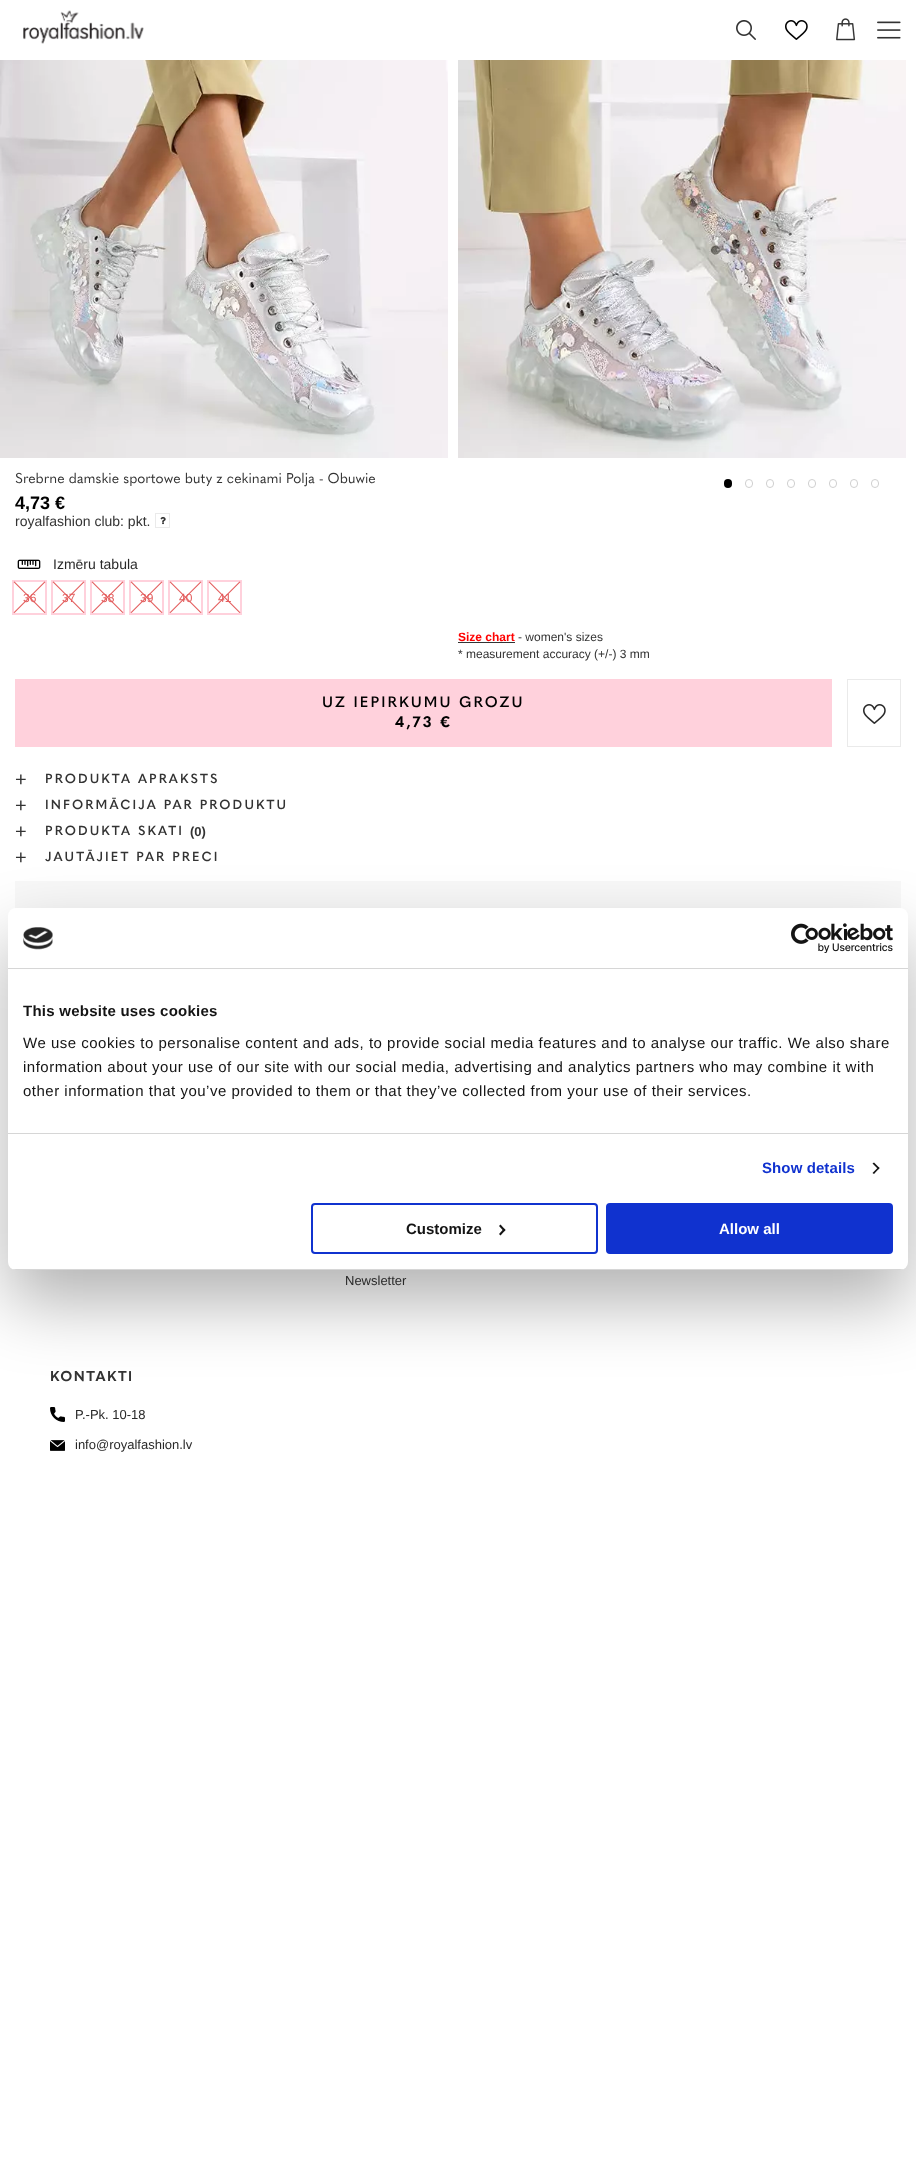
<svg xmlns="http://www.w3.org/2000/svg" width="916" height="2178">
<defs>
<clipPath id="clip1"><rect x="8" y="908" width="900" height="362" rx="8"/></clipPath>
</defs>
<rect width="100%" height="100%" fill="#fff"/>
<image x="23" y="10" width="121" height="34" href="media/1.png"/>
<image x="736" y="20" width="20" height="20" href="media/2.png"/>
<image x="785" y="20" width="23" height="20" href="media/3.png"/>
<image x="836" y="18" width="20" height="23" href="media/4.png"/>
<image x="877" y="21" width="24" height="18" href="media/5.png"/>
<image x="0" y="60" width="448" height="398" href="media/6.png"/>
<image x="458" y="60" width="448" height="398" href="media/7.png"/>
<rect x="724" y="479" width="8" height="9" rx="4" fill="#000"/>
<rect x="745.5" y="479.5" width="7" height="8" rx="3.5" fill="none" stroke="#d0d0d0"/>
<rect x="766.5" y="479.5" width="7" height="8" rx="3.5" fill="none" stroke="#d0d0d0"/>
<rect x="787.5" y="479.5" width="7" height="8" rx="3.5" fill="none" stroke="#d0d0d0"/>
<rect x="808.5" y="479.5" width="7" height="8" rx="3.5" fill="none" stroke="#d0d0d0"/>
<rect x="829.5" y="479.5" width="7" height="8" rx="3.5" fill="none" stroke="#d0d0d0"/>
<rect x="850.5" y="479.5" width="7" height="8" rx="3.5" fill="none" stroke="#d0d0d0"/>
<rect x="871.5" y="479.5" width="7" height="8" rx="3.5" fill="none" stroke="#d0d0d0"/>
<text x="15" y="483" style="font-family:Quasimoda;font-size:14px;fill:#333">Srebrne damskie sportowe buty z cekinami Polja - Obuwie</text>
<text x="15" y="509" style="font-family:Liberation Sans;font-size:18px;font-weight:bold;fill:#000">4,73 €</text>
<text x="15" y="526" style="font-family:Liberation Sans;font-size:14px;fill:#333">royalfashion club: pkt.</text>
<rect x="155.5" y="513.5" width="14" height="14" fill="none" stroke="#eaeaea"/>
<image x="160" y="516" width="6" height="9" href="media/8.png"/>
<image x="17" y="559" width="24" height="10" href="media/9.png"/>
<text x="53" y="569" style="font-family:Liberation Sans;font-size:14px;fill:#292929">Izmēru tabula</text>
<rect x="13" y="581" width="33" height="33" fill="none" stroke="#ffd1dc" stroke-width="2"/>
<path d="M14.5 581.5l31 31l-1 .5l-31-31z" fill="#e35c5c"/>
<path d="M13.5 612.5l31-31l1 .5l-31 31z" fill="#e35c5c"/>
<text x="23" y="602" style="font-family:Liberation Sans;font-size:12px;fill:#e35c5c">36</text>
<rect x="52" y="581" width="33" height="33" fill="none" stroke="#ffd1dc" stroke-width="2"/>
<path d="M53.5 581.5l31 31l-1 .5l-31-31z" fill="#e35c5c"/>
<path d="M52.5 612.5l31-31l1 .5l-31 31z" fill="#e35c5c"/>
<text x="62" y="602" style="font-family:Liberation Sans;font-size:12px;fill:#e35c5c">37</text>
<rect x="91" y="581" width="33" height="33" fill="none" stroke="#ffd1dc" stroke-width="2"/>
<path d="M92.5 581.5l31 31l-1 .5l-31-31z" fill="#e35c5c"/>
<path d="M91.5 612.5l31-31l1 .5l-31 31z" fill="#e35c5c"/>
<text x="101" y="602" style="font-family:Liberation Sans;font-size:12px;fill:#e35c5c">38</text>
<rect x="130" y="581" width="33" height="33" fill="none" stroke="#ffd1dc" stroke-width="2"/>
<path d="M131.5 581.5l31 31l-1 .5l-31-31z" fill="#e35c5c"/>
<path d="M130.5 612.5l31-31l1 .5l-31 31z" fill="#e35c5c"/>
<text x="140" y="602" style="font-family:Liberation Sans;font-size:12px;fill:#e35c5c">39</text>
<rect x="169" y="581" width="33" height="33" fill="none" stroke="#ffd1dc" stroke-width="2"/>
<path d="M170.5 581.5l31 31l-1 .5l-31-31z" fill="#e35c5c"/>
<path d="M169.5 612.5l31-31l1 .5l-31 31z" fill="#e35c5c"/>
<text x="179" y="602" style="font-family:Liberation Sans;font-size:12px;fill:#e35c5c">40</text>
<rect x="208" y="581" width="33" height="33" fill="none" stroke="#ffd1dc" stroke-width="2"/>
<path d="M209.5 581.5l31 31l-1 .5l-31-31z" fill="#e35c5c"/>
<path d="M208.5 612.5l31-31l1 .5l-31 31z" fill="#e35c5c"/>
<text x="218" y="602" style="font-family:Liberation Sans;font-size:12px;fill:#e35c5c">41</text>
<text x="458" y="641" style="font-family:Liberation Sans;font-size:12px;font-weight:bold;fill:#f00">Size chart</text>
<rect x="458" y="642" width="57" height="1" fill="#333"/>
<text x="518" y="641" style="font-family:Liberation Sans;font-size:12px;fill:#333">- women's sizes</text>
<text x="458" y="658" style="font-family:Liberation Sans;font-size:12px;fill:#333">* measurement accuracy (+/-) 3 mm</text>
<rect x="15" y="679" width="817" height="68" fill="#ffd1dc"/>
<text x="322" y="707" style="font-family:Quasimoda;font-size:15px;font-weight:600;letter-spacing:2.1px;fill:#000">UZ IEPIRKUMU GROZU</text>
<text x="395" y="727" style="font-family:Quasimoda;font-size:15px;font-weight:bold;letter-spacing:2.1px;fill:#000">4,73 €</text>
<rect x="847.5" y="679.5" width="53" height="67" fill="none" stroke="#eaeaea"/>
<image x="863" y="704" width="23" height="20" href="media/10.png"/>
<text x="15" y="786" style="font-family:Liberation Sans;font-size:20px;fill:#333">+</text>
<text x="45" y="783" style="font-family:Quasimoda;font-size:13px;font-weight:600;letter-spacing:2.1px;fill:#333">PRODUKTA APRAKSTS</text>
<text x="15" y="812" style="font-family:Liberation Sans;font-size:20px;fill:#333">+</text>
<text x="45" y="809" style="font-family:Quasimoda;font-size:13px;font-weight:600;letter-spacing:2.1px;fill:#333">INFORMĀCIJA PAR PRODUKTU</text>
<text x="15" y="838" style="font-family:Liberation Sans;font-size:20px;fill:#333">+</text>
<text x="45" y="835" style="font-family:Quasimoda;font-size:13px;font-weight:600;letter-spacing:2.1px;fill:#333">PRODUKTA SKATI</text>
<text x="190" y="836" style="font-family:Liberation Sans;font-size:13px;font-weight:bold;fill:#333">(0)</text>
<text x="15" y="864" style="font-family:Liberation Sans;font-size:20px;fill:#333">+</text>
<text x="45" y="861" style="font-family:Quasimoda;font-size:13px;font-weight:600;letter-spacing:2.1px;fill:#333">JAUTĀJIET PAR PRECI</text>
<rect x="15" y="881" width="886" height="28" fill="#f8f8f8"/>
<rect x="8" y="940" width="900" height="362" rx="8" fill="#0000004d" filter="blur(34px)"/>
<rect x="8" y="908" width="900" height="362" rx="8" fill="#fff"/>
<rect x="8" y="968" width="900" height="1" fill="#d6d6d6"/>
<image x="23" y="927" width="30" height="23" href="media/11.png"/>
<image x="791" y="923" width="102" height="30" href="media/12.png"/>
<rect x="8" y="1133" width="900" height="1" fill="#d6d6d6"/>
<text x="23" y="1016" style="font-family:Liberation Sans;font-size:15px;font-weight:bold;letter-spacing:0.25px;fill:#141414">This website uses cookies</text>
<text x="23" y="1048" style="font-family:Liberation Sans;font-size:15px;letter-spacing:0.5px;fill:#141414">We use cookies to personalise content and ads, to provide social media features and to analyse our traffic. We also share</text>
<text x="23" y="1072" style="font-family:Liberation Sans;font-size:15px;letter-spacing:0.5px;fill:#141414">information about your use of our site with our social media, advertising and analytics partners who may combine it with</text>
<text x="23" y="1096" style="font-family:Liberation Sans;font-size:15px;letter-spacing:0.5px;fill:#141414">other information that you’ve provided to them or that they’ve collected from your use of their services.</text>
<text x="762" y="1173" style="font-family:Liberation Sans;font-size:15px;font-weight:bold;letter-spacing:0.1px;fill:#1032cf">Show details</text>
<path d="M874 1162.5l5.5 5.5l-1 1.5l-6-6z" fill="#141414"/>
<path d="M878.5 1167l1 1l-5.5 6l-1.5-1z" fill="#141414"/>
<g clip-path="url(#clip1)">
<rect x="8" y="1269" width="900" height="1" fill="#d6d6d6"/>
</g>
<rect x="312" y="1204" width="285" height="49" rx="3" fill="none" stroke="#1032cf" stroke-width="2"/>
<text x="406" y="1234" style="font-family:Liberation Sans;font-size:15px;font-weight:bold;fill:#141414">Customize</text>
<path d="M500.5 1224.5l5 5.5l-1.5 1.5l-5-5.5z" fill="#141414"/>
<path d="M504 1228.5l1.5 1.5l-5 5.5l-1.5-1.5z" fill="#141414"/>
<rect x="607" y="1204" width="285" height="49" rx="3" fill="#1032cf" stroke="#1032cf" stroke-width="2"/>
<text x="719" y="1234" style="font-family:Liberation Sans;font-size:15px;font-weight:bold;fill:#fff">Allow all</text>
<text x="345" y="1285" style="font-family:Liberation Sans;font-size:13px;fill:#292929">Newsletter</text>
<text x="50" y="1381" style="font-family:Quasimoda;font-size:14px;font-weight:bold;letter-spacing:1.5px;fill:#333">KONTAKTI</text>
<image x="50" y="1407" width="15" height="15" href="media/13.png"/>
<text x="75" y="1419" style="font-family:Liberation Sans;font-size:13px;fill:#292929">P.-Pk. 10-18</text>
<image x="50" y="1440" width="15" height="11" href="media/14.png"/>
<text x="75" y="1449" style="font-family:Liberation Sans;font-size:13px;fill:#292929">info@royalfashion.lv</text>
</svg>
